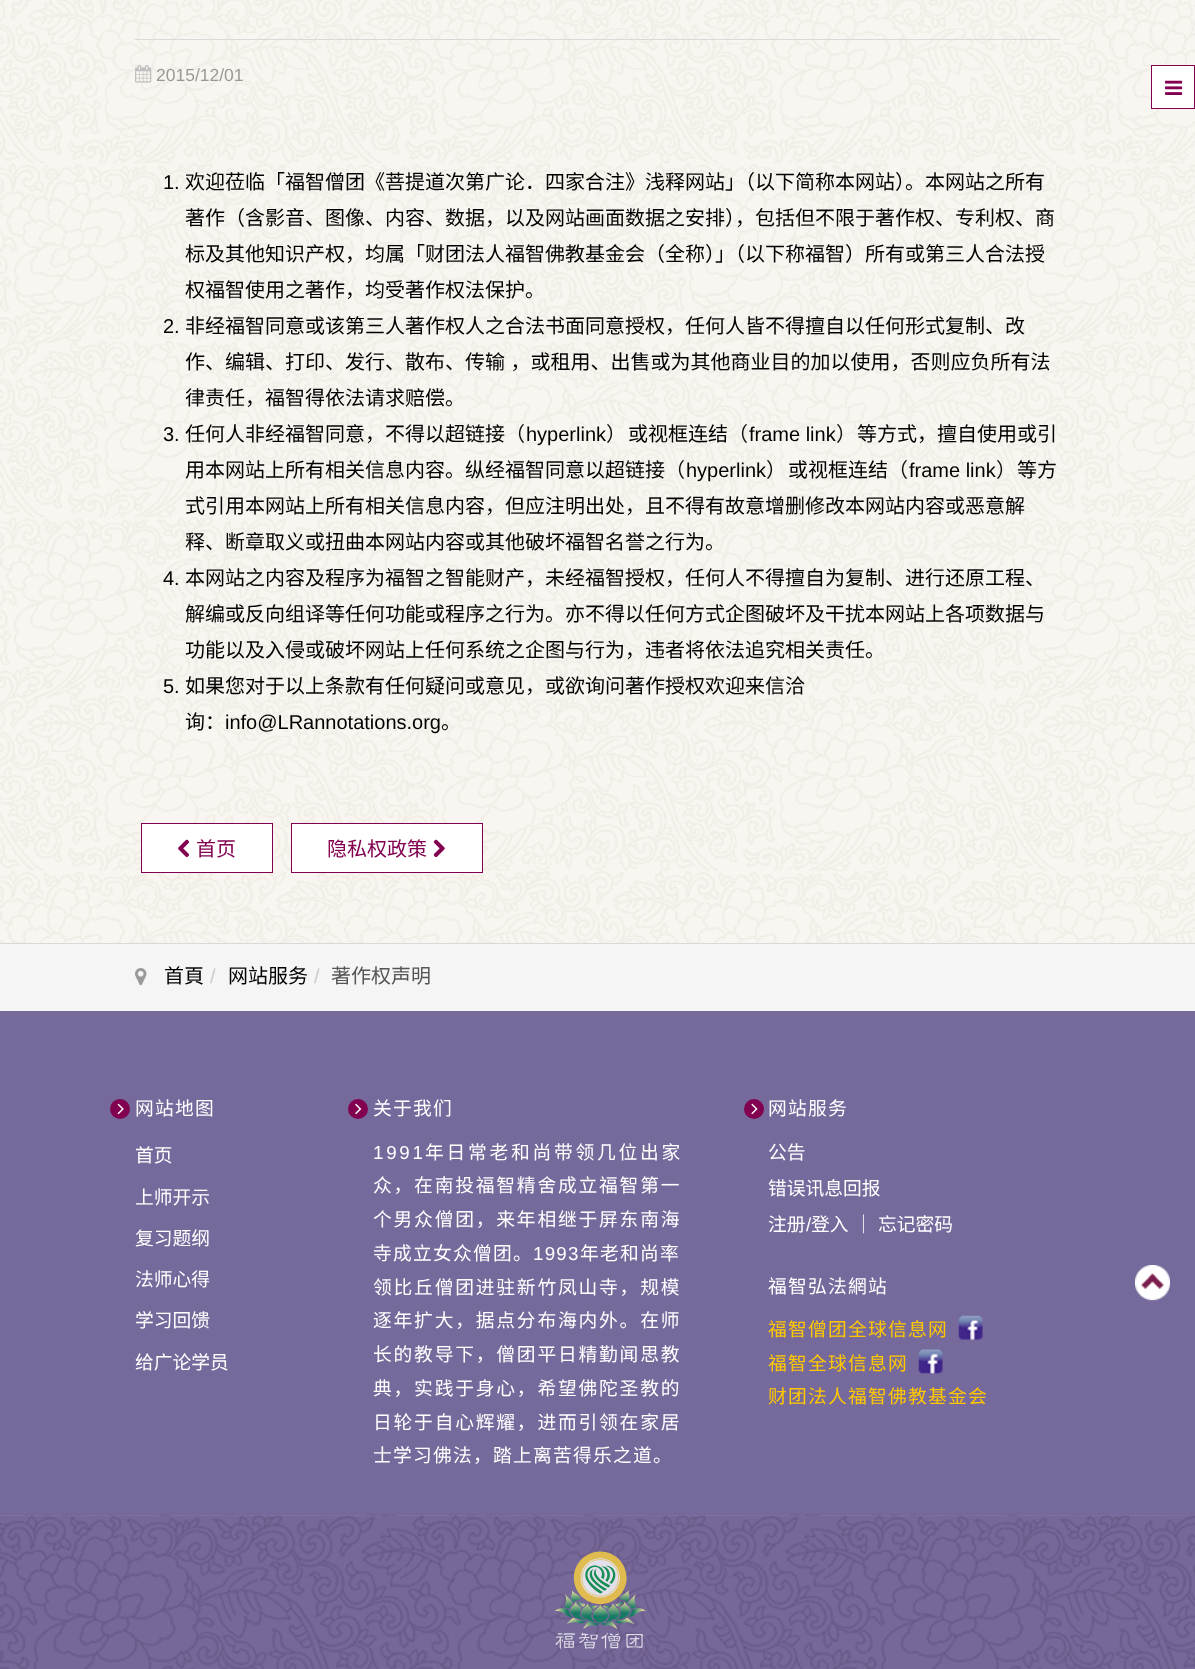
<svg xmlns="http://www.w3.org/2000/svg" width="1195" height="1669">
<rect width="100%" height="100%" fill="#fff"/>
<image x="0" y="0" width="1195" height="943" href="media/1.png"/>
<rect x="135" y="39" width="925" height="1" fill="#d9d9d9"/>
<image x="135" y="65" width="17" height="18" href="media/2.png"/>
<text x="156" y="81" style="font-family:Liberation Sans;font-size:17.5px;fill:#999">2015/12/01</text>
<text x="163" y="189" style="font-family:Liberation Sans;font-size:20px;fill:#000">1.</text>
<text x="185" y="189" style="font-family:Noto Sans CJK SC;font-size:20px;fill:#000">欢迎莅临「福智僧团《菩提道次第广论．四家合注》浅释网站」（以下简称本网站）。本网站之所有</text>
<text x="185" y="225" style="font-family:Noto Sans CJK SC;font-size:20px;fill:#000">著作（含影音、图像、内容、数据，以及网站画面数据之安排），包括但不限于著作权、专利权、商</text>
<text x="185" y="261" style="font-family:Noto Sans CJK SC;font-size:20px;fill:#000">标及其他知识产权，均属「财团法人福智佛教基金会（全称）」（以下称福智）所有或第三人合法授</text>
<text x="185" y="297" style="font-family:Noto Sans CJK SC;font-size:20px;fill:#000">权福智使用之著作，均受著作权法保护。</text>
<text x="163" y="333" style="font-family:Liberation Sans;font-size:20px;fill:#000">2.</text>
<text x="185" y="333" style="font-family:Noto Sans CJK SC;font-size:20px;fill:#000">非经福智同意或该第三人著作权人之合法书面同意授权，任何人皆不得擅自以任何形式复制、改</text>
<text x="185" y="369" word-spacing="1" style="font-family:Noto Sans CJK SC;font-size:20px;fill:#000">作、编辑、打印、发行、散布、传输 ，或租用、出售或为其他商业目的加以使用，否则应负所有法</text>
<text x="185" y="405" style="font-family:Noto Sans CJK SC;font-size:20px;fill:#000">律责任，福智得依法请求赔偿。</text>
<text x="163" y="441" style="font-family:Liberation Sans;font-size:20px;fill:#000">3.</text>
<text x="185" y="441" style="font-family:Noto Sans CJK SC;font-size:20px;fill:#000">任何人非经福智同意，不得以超链接</text>
<text x="505" y="441" style="font-family:Noto Sans CJK SC;font-size:20px;letter-spacing:1.25px;fill:#0f0f0f">（</text>
<text x="526" y="441" style="font-family:Liberation Sans;font-size:20px;fill:#000">hyperlink</text>
<text x="606" y="441" style="font-family:Noto Sans CJK SC;font-size:20px;letter-spacing:1.25px;fill:#0f0f0f">）</text>
<text x="628" y="441" style="font-family:Noto Sans CJK SC;font-size:20px;fill:#000">或视框连结</text>
<text x="728" y="441" style="font-family:Noto Sans CJK SC;font-size:20px;letter-spacing:1.25px;fill:#0f0f0f">（</text>
<text x="749" y="441" style="font-family:Liberation Sans;font-size:20px;fill:#000">frame link</text>
<text x="836" y="441" style="font-family:Noto Sans CJK SC;font-size:20px;letter-spacing:1.25px;fill:#0f0f0f">）</text>
<text x="857" y="441" style="font-family:Noto Sans CJK SC;font-size:20px;fill:#000">等方式，擅自使用或引</text>
<text x="185" y="477" style="font-family:Noto Sans CJK SC;font-size:20px;fill:#000">用本网站上所有相关信息内容。纵经福智同意以超链接</text>
<text x="665" y="477" style="font-family:Noto Sans CJK SC;font-size:20px;letter-spacing:1.25px;fill:#0f0f0f">（</text>
<text x="686" y="477" style="font-family:Liberation Sans;font-size:20px;fill:#000">hyperlink</text>
<text x="766" y="477" style="font-family:Noto Sans CJK SC;font-size:20px;letter-spacing:1.25px;fill:#0f0f0f">）</text>
<text x="788" y="477" style="font-family:Noto Sans CJK SC;font-size:20px;fill:#000">或视框连结</text>
<text x="888" y="477" style="font-family:Noto Sans CJK SC;font-size:20px;letter-spacing:1.25px;fill:#0f0f0f">（</text>
<text x="909" y="477" style="font-family:Liberation Sans;font-size:20px;fill:#000">frame link</text>
<text x="996" y="477" style="font-family:Noto Sans CJK SC;font-size:20px;letter-spacing:1.25px;fill:#0f0f0f">）</text>
<text x="1017" y="477" style="font-family:Noto Sans CJK SC;font-size:20px;fill:#000">等方</text>
<text x="185" y="513" style="font-family:Noto Sans CJK SC;font-size:20px;fill:#000">式引用本网站上所有相关信息内容，但应注明出处，且不得有故意增删修改本网站内容或恶意解</text>
<text x="185" y="549" style="font-family:Noto Sans CJK SC;font-size:20px;fill:#000">释、断章取义或扭曲本网站内容或其他破坏福智名誉之行为。</text>
<text x="163" y="585" style="font-family:Liberation Sans;font-size:20px;fill:#000">4.</text>
<text x="185" y="585" style="font-family:Noto Sans CJK SC;font-size:20px;fill:#000">本网站之内容及程序为福智之智能财产，未经福智授权，任何人不得擅自为复制、进行还原工程、</text>
<text x="185" y="621" style="font-family:Noto Sans CJK SC;font-size:20px;fill:#000">解编或反向组译等任何功能或程序之行为。亦不得以任何方式企图破坏及干扰本网站上各项数据与</text>
<text x="185" y="657" style="font-family:Noto Sans CJK SC;font-size:20px;fill:#000">功能以及入侵或破坏网站上任何系统之企图与行为，违者将依法追究相关责任。</text>
<text x="163" y="693" style="font-family:Liberation Sans;font-size:20px;fill:#000">5.</text>
<text x="185" y="693" style="font-family:Noto Sans CJK SC;font-size:20px;fill:#000">如果您对于以上条款有任何疑问或意见，或欲询问著作授权欢迎来信洽</text>
<text x="185" y="729" style="font-family:Noto Sans CJK SC;font-size:20px;fill:#000">询：</text>
<text x="225" y="729" style="font-family:Liberation Sans;font-size:20px;fill:#000">info@LRannotations.org</text>
<text x="441" y="729" style="font-family:Noto Sans CJK SC;font-size:20px;fill:#000">。</text>
<rect x="141.5" y="823.5" width="131" height="49" fill="#fff" stroke="#820050"/>
<image x="178" y="839" width="11" height="19" href="media/3.png"/>
<text x="196" y="856" style="font-family:Noto Sans CJK SC;font-size:20px;fill:#820050">首页</text>
<rect x="291.5" y="823.5" width="191" height="49" fill="#fff" stroke="#820050"/>
<text x="327" y="856" style="font-family:Noto Sans CJK SC;font-size:20px;fill:#820050">隐私权政策</text>
<image x="433" y="839" width="12" height="19" href="media/4.png"/>
<rect x="1151.5" y="65.5" width="43" height="43" fill="#fff" stroke="#820050"/>
<image x="1165" y="80" width="18" height="15" href="media/5.png"/>
<rect y="944" width="1195" height="67" fill="#f5f5f5"/>
<rect y="943" width="1195" height="1" fill="#d9d9d9"/>
<image x="135" y="968" width="12" height="18" href="media/6.png"/>
<text x="164" y="983" style="font-family:Noto Sans CJK SC;font-size:20px;fill:#000">首頁</text>
<text x="210" y="983" style="font-family:Liberation Sans;font-size:20px;fill:#ccc">/</text>
<text x="228" y="983" style="font-family:Noto Sans CJK SC;font-size:20px;fill:#000">网站服务</text>
<text x="314" y="983" style="font-family:Liberation Sans;font-size:20px;fill:#ccc">/</text>
<text x="331" y="983" style="font-family:Noto Sans CJK SC;font-size:20px;fill:#555">著作权声明</text>
<rect y="1011" width="1195" height="504" fill="#76699b"/>
<circle cx="120" cy="1109" r="10" fill="#820050"/>
<image x="117" y="1103" width="7" height="12" href="media/7.png"/>
<text x="135" y="1115" style="font-family:Noto Sans CJK SC;font-size:18.75px;letter-spacing:1.25px;fill:#fff">网站地图</text>
<text x="135" y="1162" style="font-family:Noto Sans CJK SC;font-size:18.75px;fill:#fff">首页</text>
<text x="135" y="1204" style="font-family:Noto Sans CJK SC;font-size:18.75px;fill:#fff">上师开示</text>
<text x="135" y="1245" style="font-family:Noto Sans CJK SC;font-size:18.75px;fill:#fff">复习题纲</text>
<text x="135" y="1286" style="font-family:Noto Sans CJK SC;font-size:18.75px;fill:#fff">法师心得</text>
<text x="135" y="1327" style="font-family:Noto Sans CJK SC;font-size:18.75px;fill:#fff">学习回馈</text>
<text x="135" y="1369" style="font-family:Noto Sans CJK SC;font-size:18.75px;fill:#fff">给广论学员</text>
<circle cx="358" cy="1109" r="10" fill="#820050"/>
<image x="355" y="1103" width="7" height="12" href="media/8.png"/>
<text x="373" y="1115" style="font-family:Noto Sans CJK SC;font-size:18.75px;letter-spacing:1.25px;fill:#fff">关于我们</text>
<text x="373" y="1159" style="font-family:Liberation Sans;font-size:18.75px;letter-spacing:2.75px;fill:#fff">1991</text>
<text x="425" y="1159" style="font-family:Noto Sans CJK SC;font-size:18.75px;letter-spacing:2.75px;fill:#fff">年日常老和尚带领几位出家</text>
<text x="373" y="1192" style="font-family:Noto Sans CJK SC;font-size:18.75px;letter-spacing:1.8px;fill:#fff">众，在南投福智精舍成立福智第一</text>
<text x="373" y="1226" style="font-family:Noto Sans CJK SC;font-size:18.75px;letter-spacing:1.8px;fill:#fff">个男众僧团，来年相继于屏东南海</text>
<text x="373" y="1260" style="font-family:Noto Sans CJK SC;font-size:18.75px;letter-spacing:1.25px;fill:#fff">寺成立女众僧团。</text>
<text x="533" y="1260" style="font-family:Liberation Sans;font-size:18.75px;letter-spacing:1.25px;fill:#fff">1993</text>
<text x="580" y="1260" style="font-family:Noto Sans CJK SC;font-size:18.75px;letter-spacing:1.25px;fill:#fff">年老和尚率</text>
<text x="373" y="1294" style="font-family:Noto Sans CJK SC;font-size:18.75px;letter-spacing:1.8px;fill:#fff">领比丘僧团进驻新竹凤山寺，规模</text>
<text x="373" y="1327" style="font-family:Noto Sans CJK SC;font-size:18.75px;letter-spacing:1.8px;fill:#fff">逐年扩大，据点分布海内外。在师</text>
<text x="373" y="1361" style="font-family:Noto Sans CJK SC;font-size:18.75px;letter-spacing:1.8px;fill:#fff">长的教导下，僧团平日精勤闻思教</text>
<text x="373" y="1395" style="font-family:Noto Sans CJK SC;font-size:18.75px;letter-spacing:1.8px;fill:#fff">典，实践于身心，希望佛陀圣教的</text>
<text x="373" y="1429" style="font-family:Noto Sans CJK SC;font-size:18.75px;letter-spacing:1.8px;fill:#fff">日轮于自心辉耀，进而引领在家居</text>
<text x="373" y="1462" style="font-family:Noto Sans CJK SC;font-size:18.75px;letter-spacing:1.25px;fill:#fff">士学习佛法，踏上离苦得乐之道。</text>
<circle cx="754" cy="1109" r="10" fill="#820050"/>
<image x="751" y="1103" width="7" height="12" href="media/9.png"/>
<text x="768" y="1115" style="font-family:Noto Sans CJK SC;font-size:18.75px;letter-spacing:1.25px;fill:#fff">网站服务</text>
<text x="768" y="1159" style="font-family:Noto Sans CJK SC;font-size:18.75px;fill:#fff">公告</text>
<text x="768" y="1195" style="font-family:Noto Sans CJK SC;font-size:18.75px;fill:#fff">错误讯息回报</text>
<text x="768" y="1231" style="font-family:Noto Sans CJK SC;font-size:18.75px;fill:#fff">注册</text>
<text x="806" y="1231" style="font-family:Liberation Sans;font-size:18.75px;fill:#fff">/</text>
<text x="811" y="1231" style="font-family:Noto Sans CJK SC;font-size:18.75px;fill:#fff">登入</text>
<text x="854" y="1231" style="font-family:Noto Sans CJK SC;font-size:18.75px;fill:#fff">｜</text>
<text x="878" y="1231" style="font-family:Noto Sans CJK SC;font-size:18.75px;fill:#fff">忘记密码</text>
<text x="768" y="1293" style="font-family:Noto Sans CJK SC;font-size:18.75px;letter-spacing:1.25px;fill:#fff">福智弘法網站</text>
<text x="768" y="1336" style="font-family:Noto Sans CJK SC;font-size:18.75px;letter-spacing:1.25px;fill:#ffc800">福智僧团全球信息网</text>
<image x="958" y="1315" width="25" height="25" href="media/10.png"/>
<text x="768" y="1370" style="font-family:Noto Sans CJK SC;font-size:18.75px;letter-spacing:1.25px;fill:#ffc800">福智全球信息网</text>
<image x="918" y="1349" width="25" height="25" href="media/11.png"/>
<text x="768" y="1403" style="font-family:Noto Sans CJK SC;font-size:18.75px;letter-spacing:1.25px;fill:#ffc800">财团法人福智佛教基金会</text>
<image x="0" y="1514" width="1195" height="155" href="media/12.png"/>
<rect y="1515" width="1195" height="1" fill="#ffffff0d"/>
<image x="555" y="1551" width="91" height="98" href="media/13.png"/>
<image x="1135" y="1265" width="35" height="36" href="media/14.png"/>
</svg>
